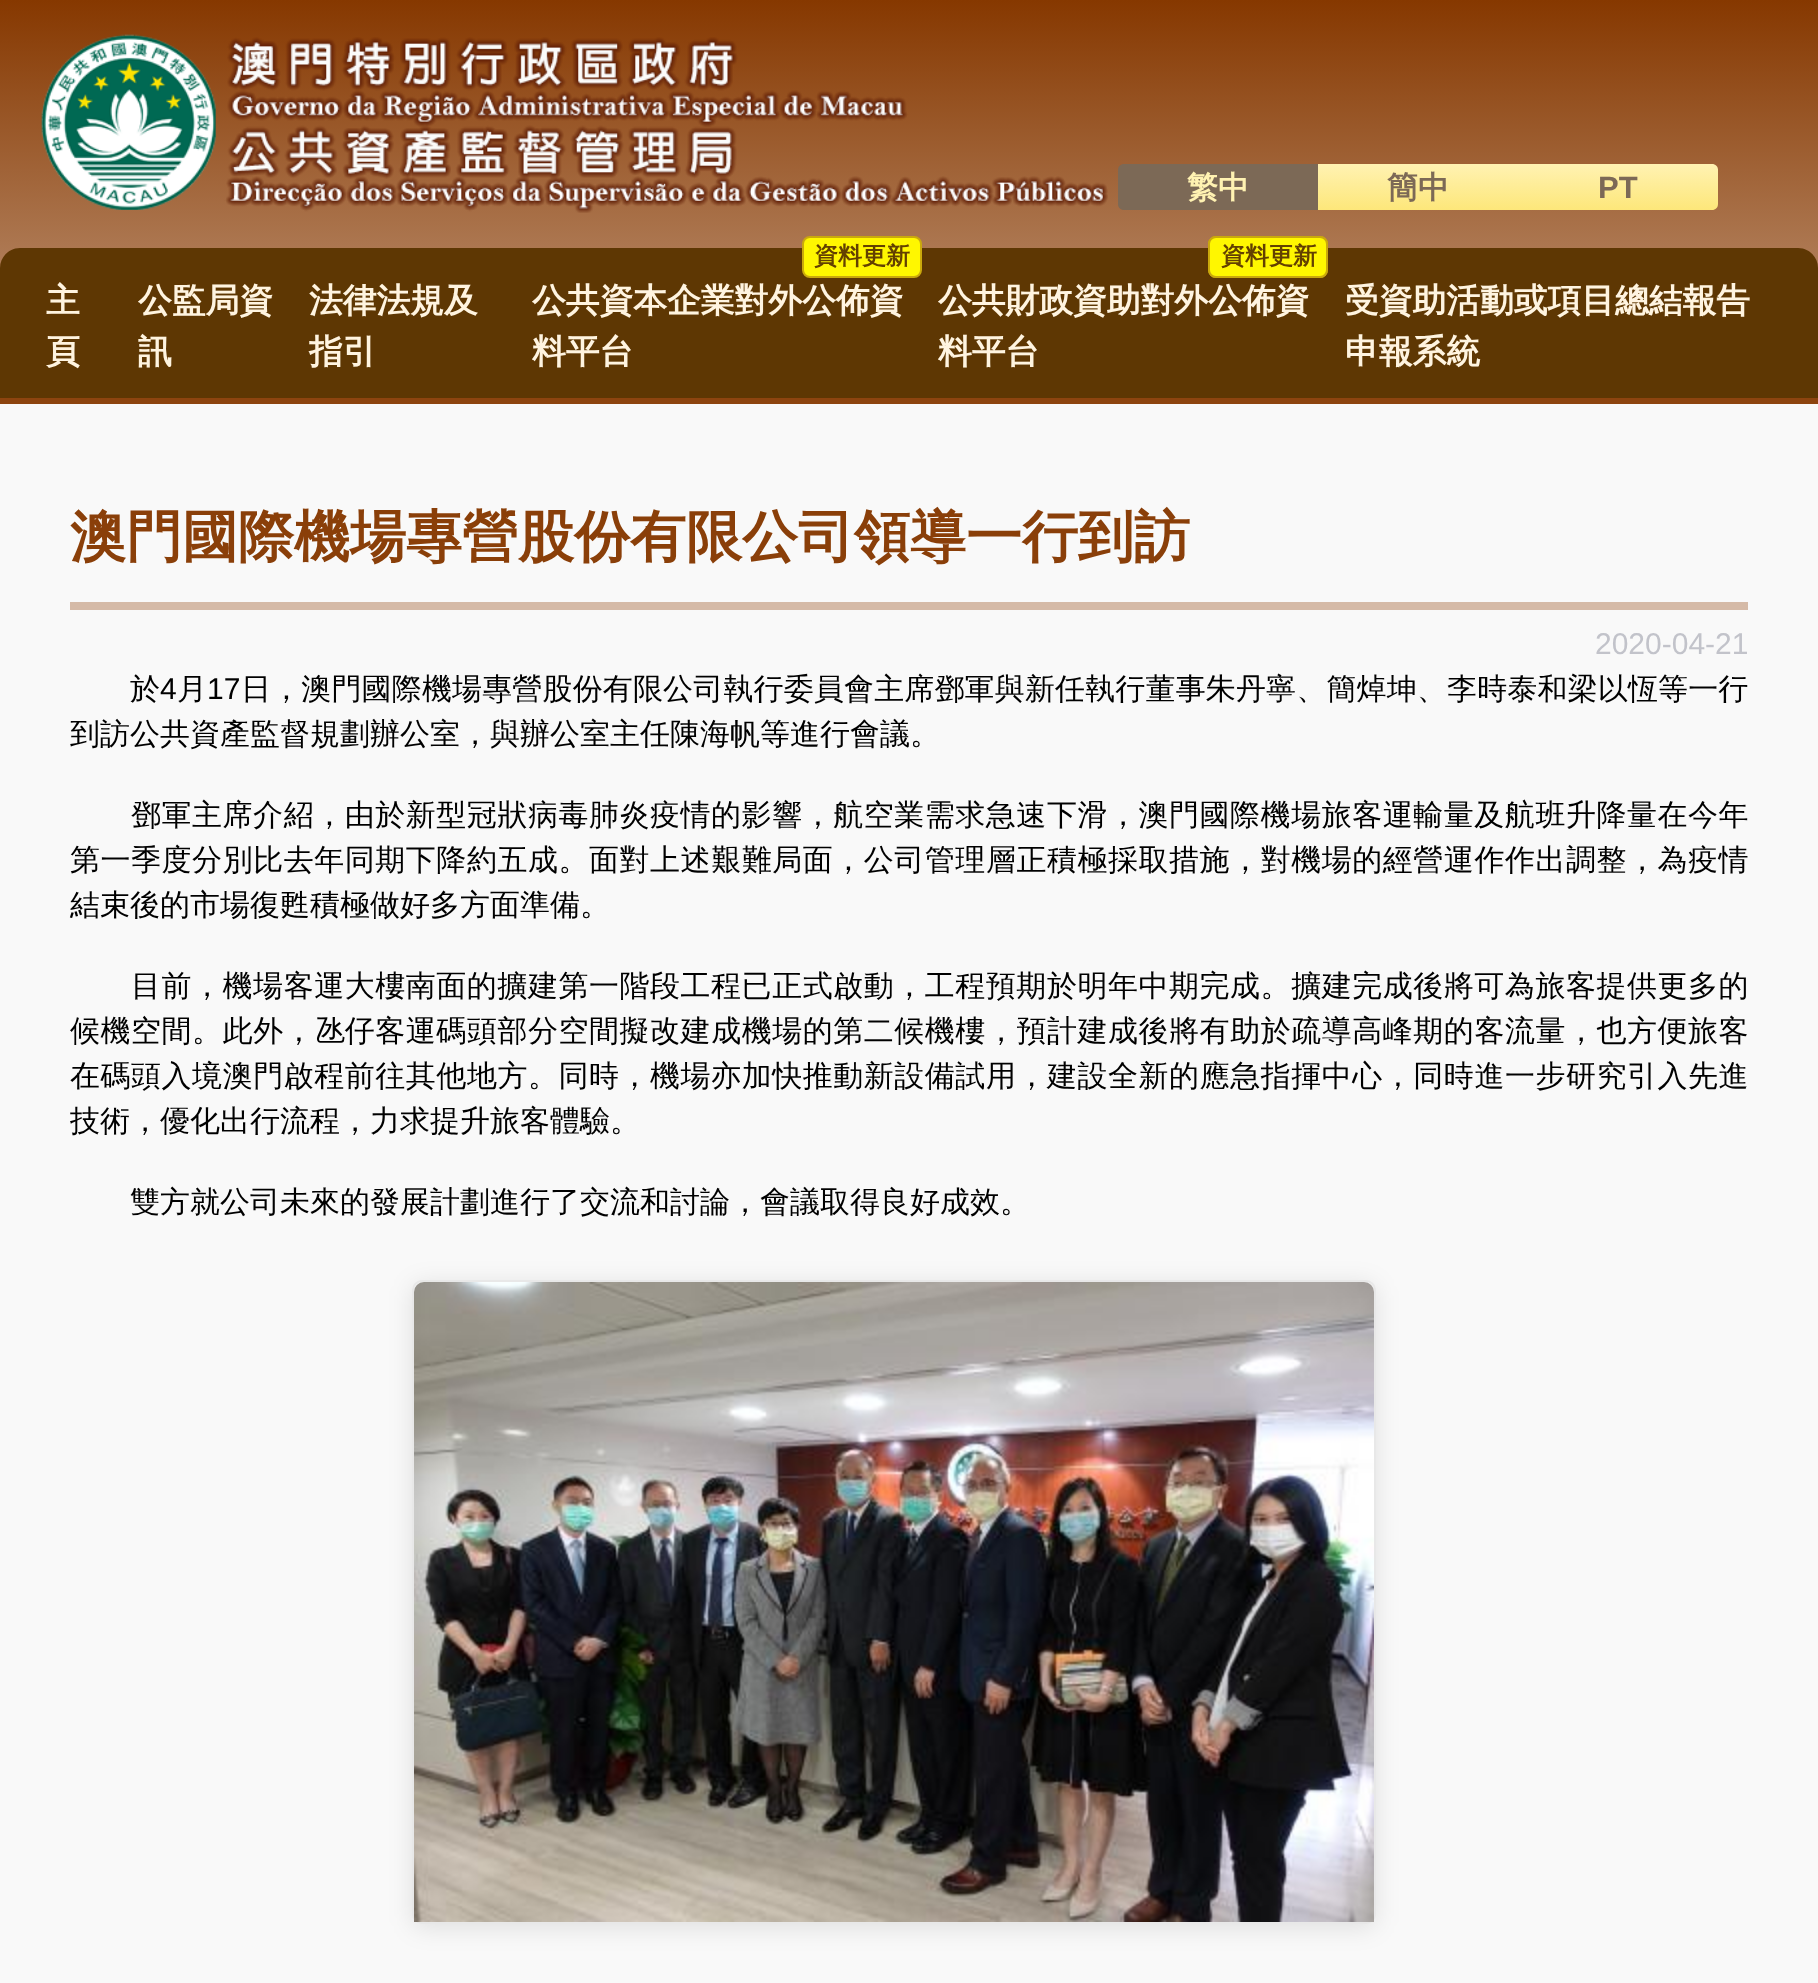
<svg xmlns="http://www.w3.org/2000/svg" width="1818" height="1983">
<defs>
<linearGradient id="g1" gradientUnits="userSpaceOnUse" x1="909" y1="0" x2="909" y2="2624"><stop offset="0" stop-color="#863800"/><stop offset="0.3" stop-color="#fff"/></linearGradient>
<linearGradient id="g2" gradientUnits="userSpaceOnUse" x1="1418" y1="164" x2="1418" y2="210"><stop offset="0" stop-color="#fff2b2"/><stop offset="1" stop-color="#fde77a"/></linearGradient>
<linearGradient id="g3" gradientUnits="userSpaceOnUse" x1="1618" y1="164" x2="1618" y2="210"><stop offset="0" stop-color="#fff2b2"/><stop offset="1" stop-color="#fde77a"/></linearGradient>
</defs>
<rect width="100%" height="100%" fill="#fff"/>
<rect width="1818" height="268" fill="url(#g1)"/>
<image x="41" y="34" width="1067" height="179" href="media/1.png"/>
<path d="M1124 164h194v46h-194c-3.5 0-6-2.5-6-6v-34c0-3.5 2.5-6 6-6z" fill="#7c6956"/>
<text x="1187" y="198" style="font-family:WenQuanYi Zen Hei;font-size:31px;font-weight:bold;fill:#fff2b2">繁中</text>
<rect x="1318" y="164" width="200" height="46" fill="url(#g2)"/>
<text x="1387" y="198" style="font-family:WenQuanYi Zen Hei;font-size:31px;font-weight:bold;fill:#7c6956">簡中</text>
<path d="M1518 164h194c3.5 0 6 2.5 6 6v34c0 3.5-2.5 6-6 6h-194z" fill="url(#g3)"/>
<text x="1598" y="198" style="font-family:Liberation Sans;font-size:31px;font-weight:bold;fill:#7c6956">PT</text>
<path d="M20 248h1778c11 0 20 9 20 20v130h-1818v-130c0-11 9-20 20-20z" fill="#5e3703"/>
<text x="46" y="312" style="font-family:WenQuanYi Zen Hei;font-size:33.75px;font-weight:bold;fill:#fff4e0">主</text>
<text x="46" y="363" style="font-family:WenQuanYi Zen Hei;font-size:33.75px;font-weight:bold;fill:#fff4e0">頁</text>
<text x="138" y="312" style="font-family:WenQuanYi Zen Hei;font-size:33.75px;font-weight:bold;fill:#fff4e0">公監局資</text>
<text x="138" y="363" style="font-family:WenQuanYi Zen Hei;font-size:33.75px;font-weight:bold;fill:#fff4e0">訊</text>
<text x="309" y="312" style="font-family:WenQuanYi Zen Hei;font-size:33.75px;font-weight:bold;fill:#fff4e0">法律法規及</text>
<text x="309" y="363" style="font-family:WenQuanYi Zen Hei;font-size:33.75px;font-weight:bold;fill:#fff4e0">指引</text>
<rect x="803" y="237" width="118" height="40" rx="7" fill="#fff700" stroke="#caa90c" stroke-width="2"/>
<text x="814" y="264" style="font-family:WenQuanYi Zen Hei;font-size:24px;font-weight:bold;fill:#634000">資料更新</text>
<text x="532" y="312" style="font-family:WenQuanYi Zen Hei;font-size:33.75px;font-weight:bold;fill:#fff4e0">公共資本企業對外公佈資</text>
<text x="532" y="363" style="font-family:WenQuanYi Zen Hei;font-size:33.75px;font-weight:bold;fill:#fff4e0">料平台</text>
<rect x="1209" y="237" width="118" height="40" rx="7" fill="none" stroke="#caa90c" stroke-width="2"/>
<rect x="1209" y="237" width="118" height="40" rx="7" fill="#fff700" stroke="#caa90c" stroke-width="2"/>
<text x="1221" y="264" style="font-family:WenQuanYi Zen Hei;font-size:24px;font-weight:bold;fill:#634000">資料更新</text>
<text x="938" y="312" style="font-family:WenQuanYi Zen Hei;font-size:33.75px;font-weight:bold;fill:#fff4e0">公共財政資助對外公佈資</text>
<text x="938" y="363" style="font-family:WenQuanYi Zen Hei;font-size:33.75px;font-weight:bold;fill:#fff4e0">料平台</text>
<text x="1345" y="312" style="font-family:WenQuanYi Zen Hei;font-size:33.75px;font-weight:bold;fill:#fff4e0">受資助活動或項目總結報告</text>
<text x="1345" y="363" style="font-family:WenQuanYi Zen Hei;font-size:33.75px;font-weight:bold;fill:#fff4e0">申報系統</text>
<rect y="404" width="1818" height="1579" fill="#f9f9f9"/>
<rect y="398" width="1818" height="6" fill="#8d440f"/>
<rect x="70" y="602" width="1678" height="8" fill="#d5baa7"/>
<text x="70" y="556" style="font-family:WenQuanYi Zen Hei;font-size:56px;font-weight:bold;fill:#8a3f09">澳門國際機場專營股份有限公司領導一行到訪</text>
<text x="1595" y="654" style="font-family:Liberation Sans;font-size:30px;fill:#c2c3ca">2020-04-21</text>
<text x="130" y="699" style="font-family:WenQuanYi Zen Hei;font-size:30px;font-weight:500;letter-spacing:0.15px;fill:#000">於</text>
<text x="160" y="699" style="font-family:Liberation Sans;font-size:30px;letter-spacing:0.15px;fill:#000">4</text>
<text x="177" y="699" style="font-family:WenQuanYi Zen Hei;font-size:30px;font-weight:500;letter-spacing:0.15px;fill:#000">月</text>
<text x="207" y="699" style="font-family:Liberation Sans;font-size:30px;letter-spacing:0.15px;fill:#000">17</text>
<text x="241" y="699" style="font-family:WenQuanYi Zen Hei;font-size:30px;font-weight:500;letter-spacing:0.15px;fill:#000">日，澳門國際機場專營股份有限公司執行委員會主席鄧軍與新任執行董事朱丹寧、簡焯坤、李時泰和梁以恆等一行</text>
<text x="70" y="744" style="font-family:WenQuanYi Zen Hei;font-size:30px;font-weight:500;fill:#000">到訪公共資產監督規劃辦公室，與辦公室主任陳海帆等進行會議。</text>
<text x="131" y="825" style="font-family:WenQuanYi Zen Hei;font-size:30px;font-weight:500;letter-spacing:0.53px;fill:#000">鄧軍主席介紹，由於新型冠狀病毒肺炎疫情的影響，航空業需求急速下滑，澳門國際機場旅客運輸量及航班升降量在今年</text>
<text x="70" y="870" style="font-family:WenQuanYi Zen Hei;font-size:30px;font-weight:500;letter-spacing:0.53px;fill:#000">第一季度分別比去年同期下降約五成。面對上述艱難局面，公司管理層正積極採取措施，對機場的經營運作作出調整，為疫情</text>
<text x="70" y="915" style="font-family:WenQuanYi Zen Hei;font-size:30px;font-weight:500;fill:#000">結束後的市場復甦積極做好多方面準備。</text>
<text x="131" y="996" style="font-family:WenQuanYi Zen Hei;font-size:30px;font-weight:500;letter-spacing:0.53px;fill:#000">目前，機場客運大樓南面的擴建第一階段工程已正式啟動，工程預期於明年中期完成。擴建完成後將可為旅客提供更多的</text>
<text x="70" y="1041" style="font-family:WenQuanYi Zen Hei;font-size:30px;font-weight:500;letter-spacing:0.53px;fill:#000">候機空間。此外，氹仔客運碼頭部分空間擬改建成機場的第二候機樓，預計建成後將有助於疏導高峰期的客流量，也方便旅客</text>
<text x="70" y="1086" style="font-family:WenQuanYi Zen Hei;font-size:30px;font-weight:500;letter-spacing:0.53px;fill:#000">在碼頭入境澳門啟程前往其他地方。同時，機場亦加快推動新設備試用，建設全新的應急指揮中心，同時進一步研究引入先進</text>
<text x="70" y="1131" style="font-family:WenQuanYi Zen Hei;font-size:30px;font-weight:500;fill:#000">技術，優化出行流程，力求提升旅客體驗。</text>
<text x="130" y="1212" style="font-family:WenQuanYi Zen Hei;font-size:30px;font-weight:500;fill:#000">雙方就公司未來的發展計劃進行了交流和討論，會議取得良好成效。</text>
<rect x="412" y="1284" width="964" height="644" rx="10" fill="#0000001a" filter="blur(12px)"/>
<rect x="413" y="1281" width="962" height="642" rx="9" fill="none" stroke="#e8e8e8" stroke-width="2"/>
<image x="414" y="1282" width="960" height="640" href="media/2.png"/>
</svg>
